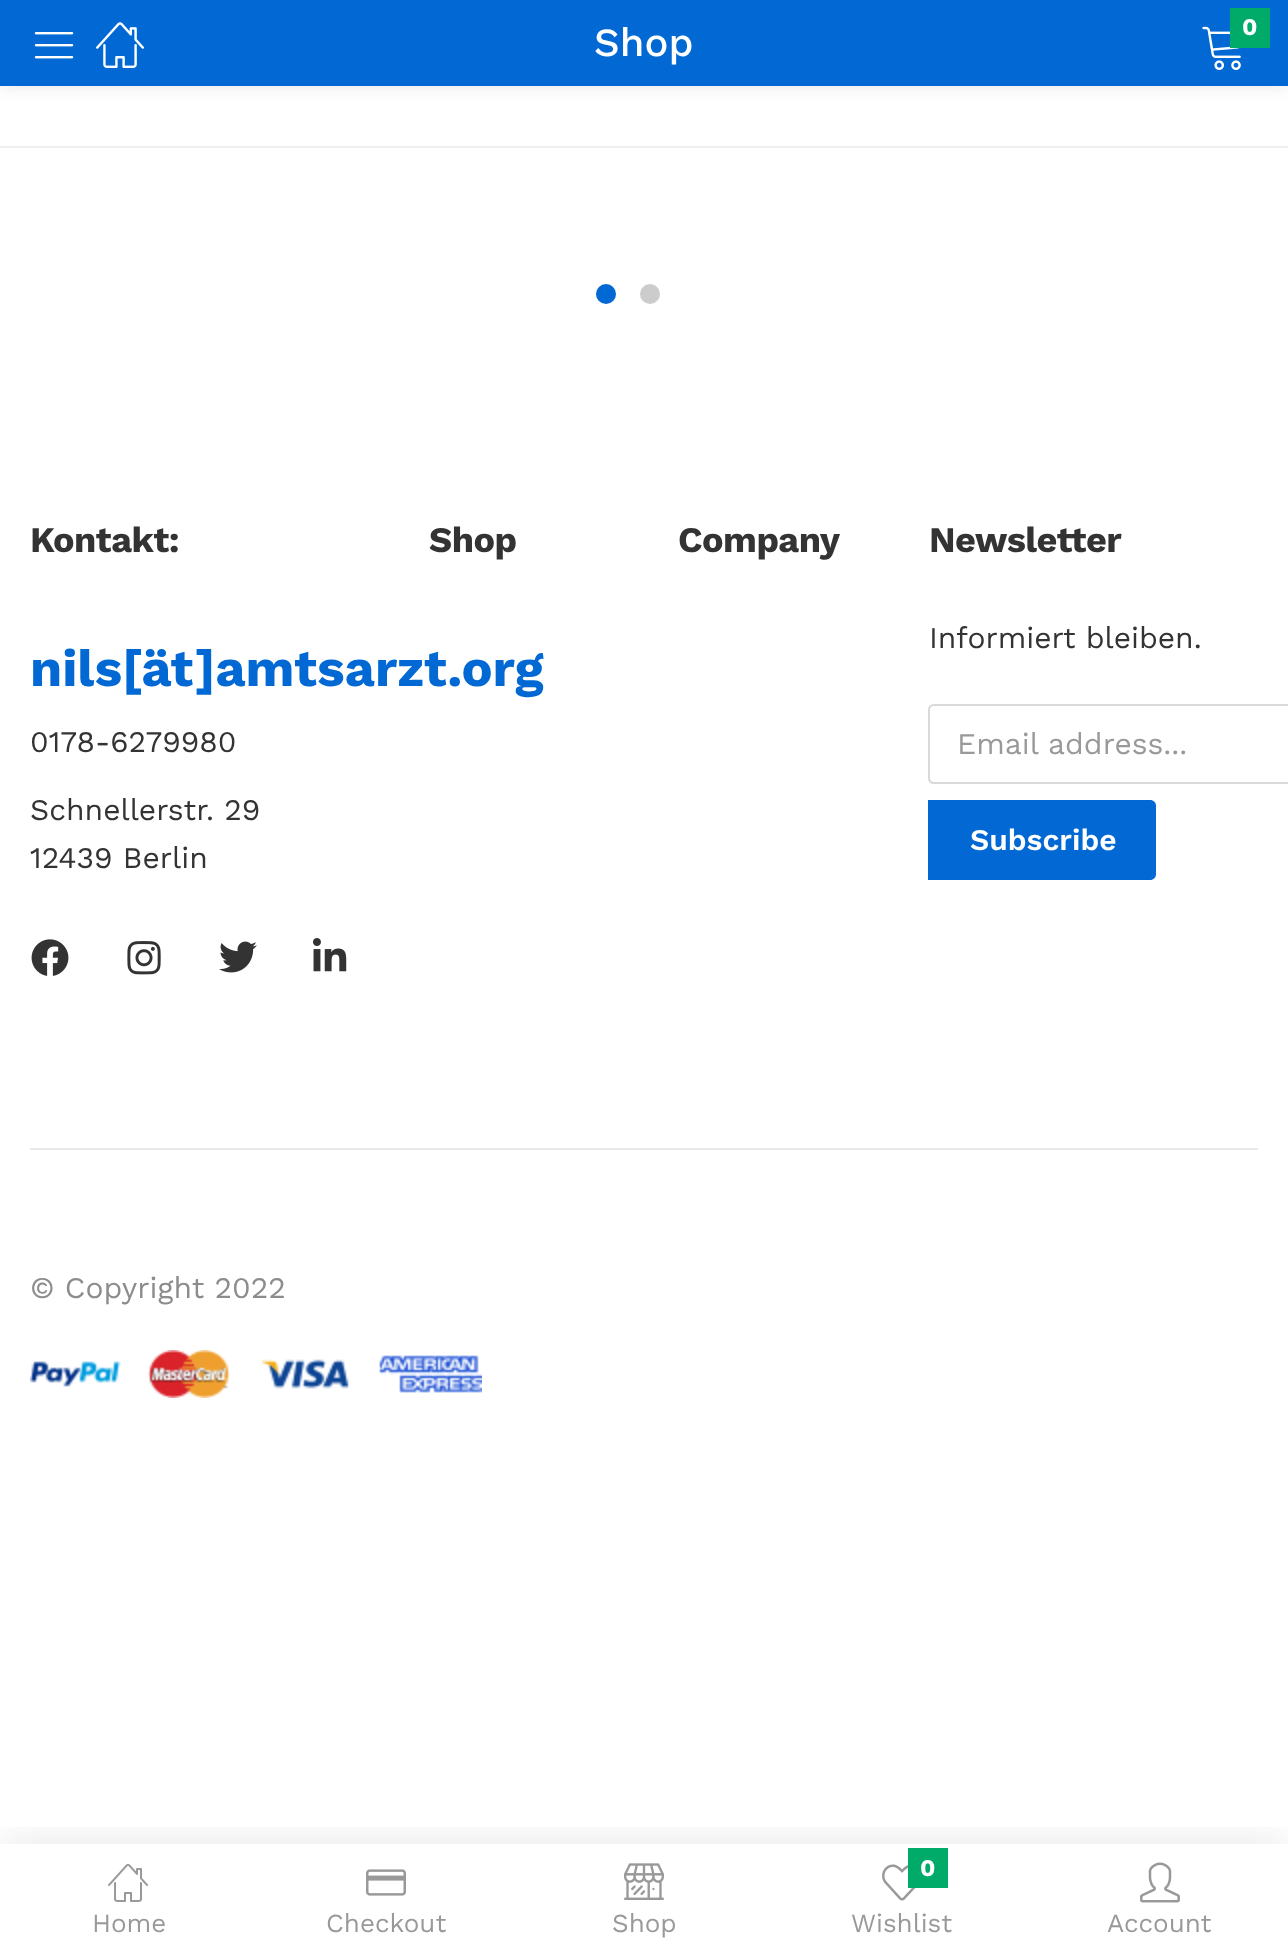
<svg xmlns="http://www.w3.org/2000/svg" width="1288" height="1953">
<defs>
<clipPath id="clip1"><rect x="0" y="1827" width="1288" height="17"/></clipPath>
</defs>
<rect width="100%" height="100%" fill="#fff"/>
<rect width="1288" height="86" fill="#0000001a" filter="blur(8px)"/>
<rect width="1288" height="86" fill="#0268d3"/>
<image x="34" y="32" width="40" height="27" href="media/1.png"/>
<image x="96" y="22" width="48" height="46" href="media/2.png"/>
<text x="594" y="56" style="font-family:Work Sans;font-size:40px;font-weight:500;fill:#fff">Shop</text>
<image x="1202" y="26" width="39" height="44" href="media/3.png"/>
<rect x="1230" y="8" width="40" height="40" fill="#00ab6a"/>
<text x="1242" y="35" style="font-family:Work Sans;font-size:24px;font-weight:bold;fill:#fff">0</text>
<rect y="146" width="1288" height="2" fill="#f0f0f0"/>
<circle cx="606" cy="294" r="10" fill="#0268d3"/>
<circle cx="650" cy="294" r="10" fill="#ccc"/>
<text x="30" y="552" style="font-family:Work Sans;font-size:36px;font-weight:bold;letter-spacing:-0.5px;fill:#333">Kontakt:</text>
<text x="30" y="686" style="font-family:Work Sans;font-size:52px;font-weight:bold;fill:#0268d3">nils[ät]amtsarzt.org</text>
<text x="30" y="752" style="font-family:Work Sans;font-size:30px;fill:#333">0178-6279980</text>
<text x="30" y="820" style="font-family:Work Sans;font-size:30px;fill:#333">Schnellerstr. 29</text>
<text x="30" y="868" style="font-family:Work Sans;font-size:30px;fill:#333">12439 Berlin</text>
<image x="31" y="939" width="38" height="37" href="media/4.png"/>
<image x="127" y="941" width="34" height="34" href="media/5.png"/>
<image x="219" y="941" width="38" height="32" href="media/6.png"/>
<image x="313" y="938" width="34" height="34" href="media/7.png"/>
<text x="429" y="552" style="font-family:Work Sans;font-size:36px;font-weight:bold;letter-spacing:-0.5px;fill:#333">Shop</text>
<text x="678" y="552" style="font-family:Work Sans;font-size:36px;font-weight:bold;letter-spacing:-0.5px;fill:#333">Company</text>
<text x="929" y="552" style="font-family:Work Sans;font-size:36px;font-weight:bold;letter-spacing:-0.5px;fill:#333">Newsletter</text>
<text x="929" y="648" style="font-family:Work Sans;font-size:30px;fill:#333">Informiert bleiben.</text>
<path d="M934 705h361v78h-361c-3 0-5-2-5-5v-68c0-3 2-5 5-5z" fill="none" stroke="#d9d9d9" stroke-width="2"/>
<text x="957" y="754" style="font-family:Work Sans;font-size:30px;fill:#999">Email address...</text>
<path d="M928 800h222c3.5 0 6 2.5 6 6v68c0 3.5-2.5 6-6 6h-222z" fill="#0268d3"/>
<text x="970" y="850" style="font-family:Work Sans;font-size:30px;font-weight:600;fill:#fff">Subscribe</text>
<rect x="30" y="1148" width="1228" height="2" fill="#eaeaea"/>
<text x="30" y="1298" style="font-family:Work Sans;font-size:30px;fill:#8c8c8c">© Copyright 2022</text>
<image x="30" y="1350" width="452" height="48" href="media/8.png"/>
<g clip-path="url(#clip1)">
<rect y="1844" width="1288" height="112" fill="#0000001a" filter="blur(20px)"/>
</g>
<image x="108" y="1864" width="40" height="38" href="media/9.png"/>
<text x="92" y="1932" style="font-family:Work Sans;font-size:26px;fill:#999">Home</text>
<image x="366" y="1869" width="40" height="27" href="media/10.png"/>
<text x="326" y="1932" style="font-family:Work Sans;font-size:26px;fill:#999">Checkout</text>
<image x="624" y="1863" width="40" height="37" href="media/11.png"/>
<text x="612" y="1932" style="font-family:Work Sans;font-size:26px;fill:#999">Shop</text>
<image x="882" y="1864" width="34" height="37" href="media/12.png"/>
<rect x="908" y="1848" width="40" height="40" fill="#00ab6a"/>
<text x="920" y="1876" style="font-family:Work Sans;font-size:24px;font-weight:bold;fill:#fff">0</text>
<text x="851" y="1932" style="font-family:Work Sans;font-size:26px;fill:#999">Wishlist</text>
<image x="1140" y="1862" width="40" height="41" href="media/13.png"/>
<text x="1107" y="1932" style="font-family:Work Sans;font-size:26px;fill:#999">Account</text>
</svg>
